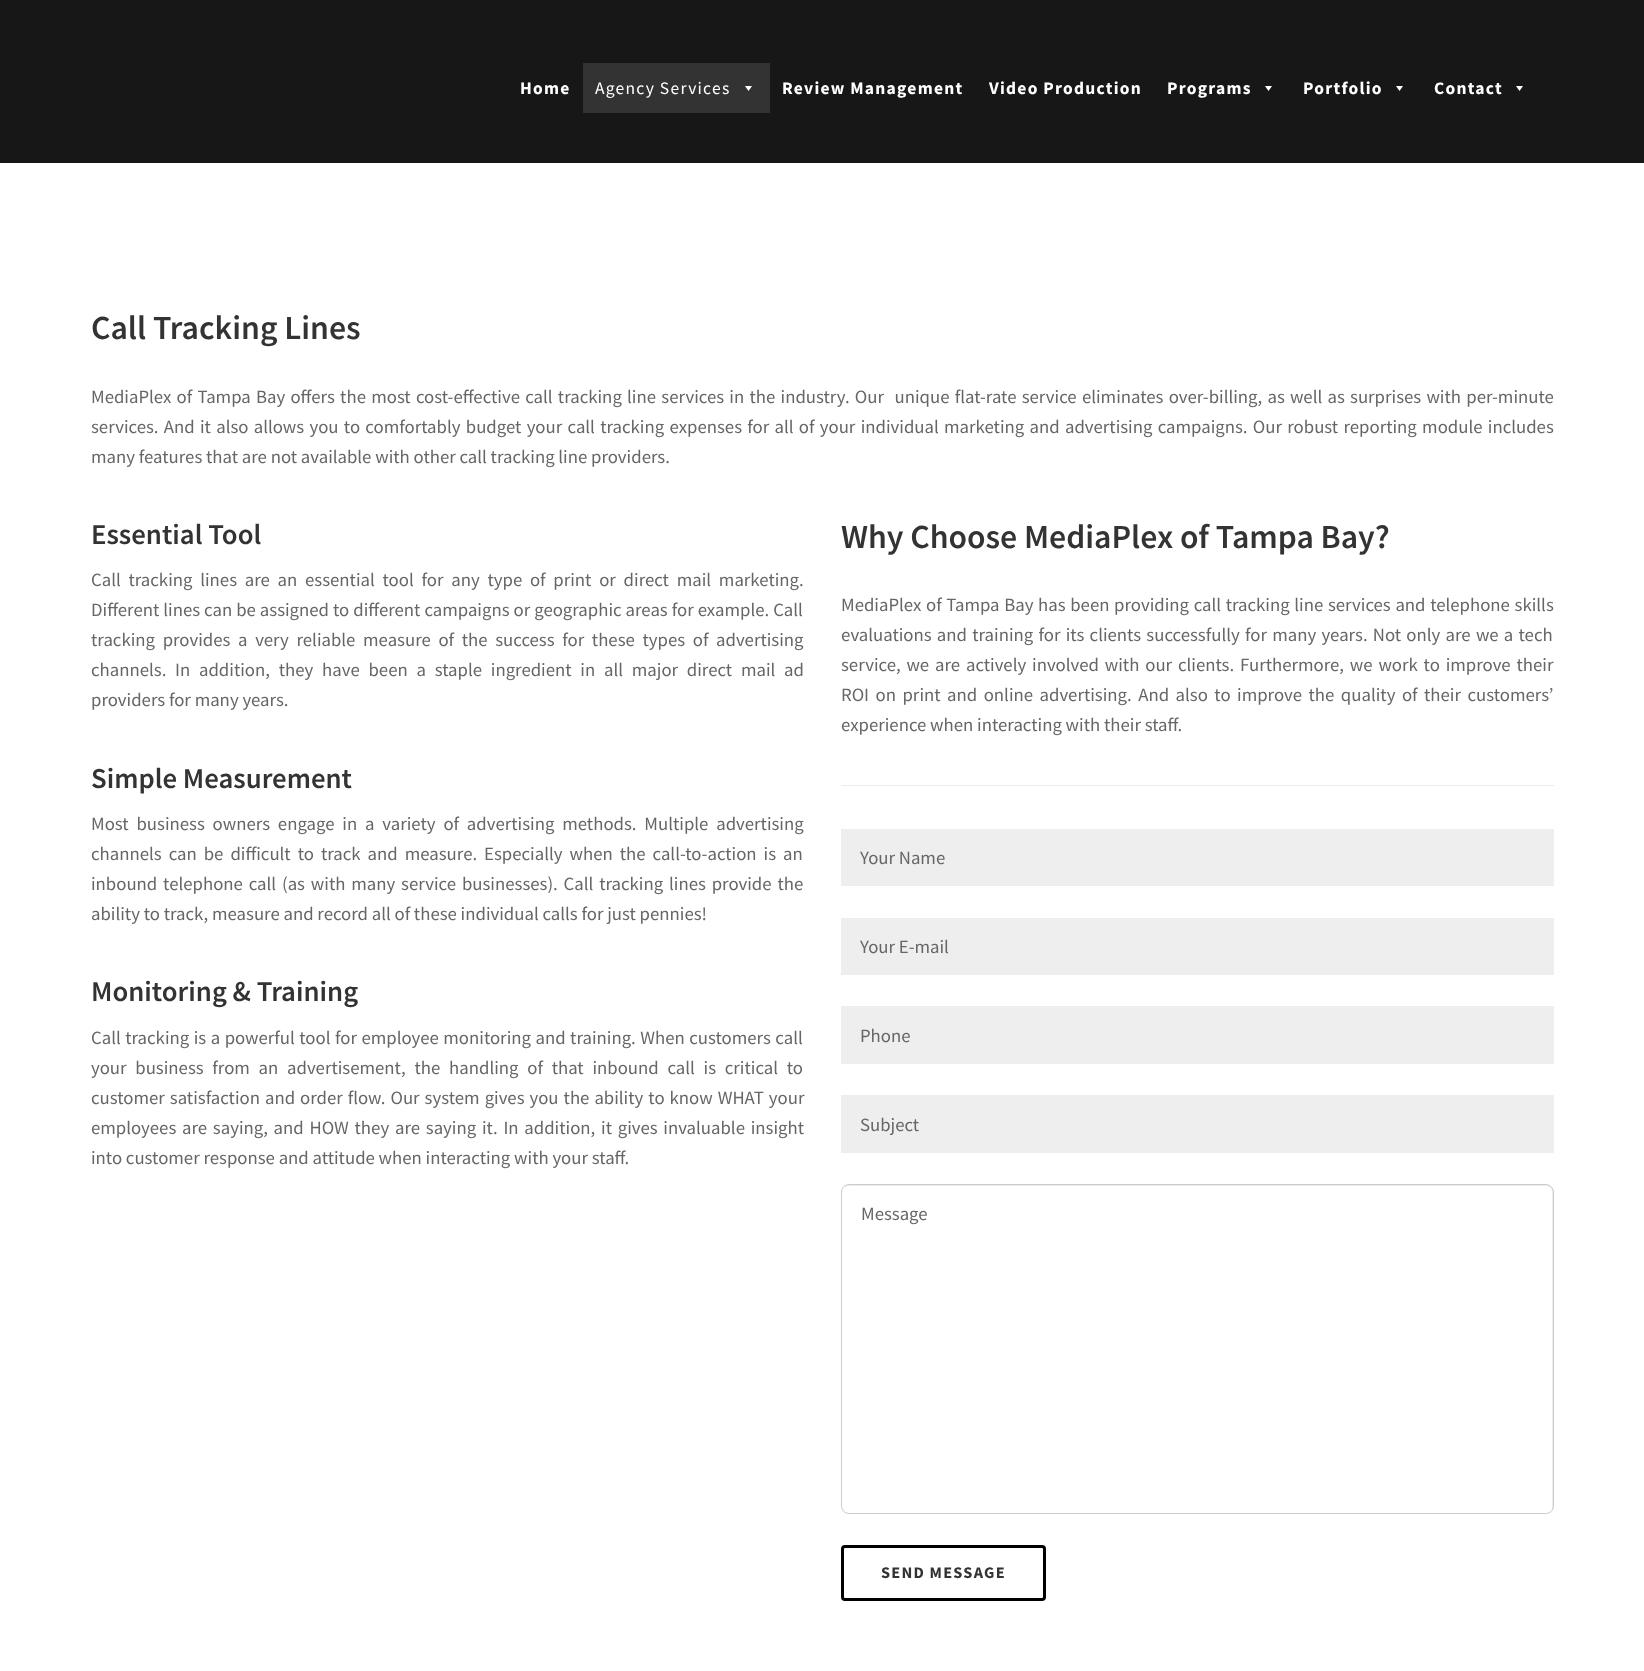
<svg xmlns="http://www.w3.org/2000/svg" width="1644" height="1671">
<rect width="100%" height="100%" fill="#171717"/>
<text x="520" y="94" style="font-family:Source Sans Pro;font-size:17.5px;font-weight:bold;letter-spacing:1.25px;fill:#fff">Home</text>
<rect x="583" y="63" width="187" height="50" fill="#333"/>
<text x="595" y="94" style="font-family:Source Sans Pro;font-size:17.5px;letter-spacing:1.25px;fill:#fff">Agency Services</text>
<path d="M752 86l-3.5 5l-3.5-5z" fill="#fff"/>
<text x="782" y="94" style="font-family:Source Sans Pro;font-size:17.5px;font-weight:bold;letter-spacing:1.25px;fill:#fff">Review Management</text>
<text x="989" y="94" style="font-family:Source Sans Pro;font-size:17.5px;font-weight:bold;letter-spacing:1.25px;fill:#fff">Video Production</text>
<text x="1167" y="94" style="font-family:Source Sans Pro;font-size:17.5px;font-weight:bold;letter-spacing:1.25px;fill:#fff">Programs</text>
<path d="M1272 86l-3.5 5l-3.5-5z" fill="#fff"/>
<text x="1303" y="94" style="font-family:Source Sans Pro;font-size:17.5px;font-weight:bold;letter-spacing:1.25px;fill:#fff">Portfolio</text>
<path d="M1403 86l-3.5 5l-3.5-5z" fill="#fff"/>
<text x="1434" y="94" style="font-family:Source Sans Pro;font-size:17.5px;font-weight:bold;letter-spacing:1.25px;fill:#fff">Contact</text>
<path d="M1523 86l-3.5 5l-3.5-5z" fill="#fff"/>
<rect y="163" width="1644" height="1508" fill="#fff"/>
<text x="91" y="339" style="font-family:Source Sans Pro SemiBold;font-size:33.75px;font-weight:600;fill:#333">Call Tracking Lines</text>
<text x="91" y="403" word-spacing="1.5" style="font-family:Source Sans Pro;font-size:18.75px;fill:#666" xml:space="preserve">MediaPlex of Tampa Bay offers the most cost-effective call tracking line services in the industry. Our  unique flat-rate service eliminates over-billing, as well as surprises with per-minute</text>
<text x="91" y="433" word-spacing="1.55" style="font-family:Source Sans Pro;font-size:18.75px;fill:#666">services. And it also allows you to comfortably budget your call tracking expenses for all of your individual marketing and advertising campaigns. Our robust reporting module includes</text>
<text x="91" y="463" style="font-family:Source Sans Pro;font-size:18.75px;fill:#666">many features that are not available with other call tracking line providers.</text>
<text x="91" y="544" style="font-family:Source Sans Pro SemiBold;font-size:28.75px;font-weight:600;fill:#333">Essential Tool</text>
<text x="91" y="586" word-spacing="4" style="font-family:Source Sans Pro;font-size:18.75px;fill:#666">Call tracking lines are an essential tool for any type of print or direct mail marketing.</text>
<text x="91" y="616" word-spacing="0.25" style="font-family:Source Sans Pro;font-size:18.75px;fill:#666">Different lines can be assigned to different campaigns or geographic areas for example. Call</text>
<text x="91" y="646" word-spacing="3.9" style="font-family:Source Sans Pro;font-size:18.75px;fill:#666">tracking provides a very reliable measure of the success for these types of advertising</text>
<text x="91" y="676" word-spacing="5" style="font-family:Source Sans Pro;font-size:18.75px;fill:#666">channels. In addition, they have been a staple ingredient in all major direct mail ad</text>
<text x="91" y="706" style="font-family:Source Sans Pro;font-size:18.75px;fill:#666">providers for many years.</text>
<text x="91" y="788" style="font-family:Source Sans Pro SemiBold;font-size:28.75px;font-weight:600;fill:#333">Simple Measurement</text>
<text x="91" y="830" word-spacing="4.1" style="font-family:Source Sans Pro;font-size:18.75px;fill:#666">Most business owners engage in a variety of advertising methods. Multiple advertising</text>
<text x="91" y="860" word-spacing="3.25" style="font-family:Source Sans Pro;font-size:18.75px;fill:#666">channels can be difficult to track and measure. Especially when the call-to-action is an</text>
<text x="91" y="890" word-spacing="2.1" style="font-family:Source Sans Pro;font-size:18.75px;fill:#666">inbound telephone call (as with many service businesses). Call tracking lines provide the</text>
<text x="91" y="920" style="font-family:Source Sans Pro;font-size:18.75px;fill:#666">ability to track, measure and record all of these individual calls for just pennies!</text>
<text x="91" y="1001" style="font-family:Source Sans Pro SemiBold;font-size:28.75px;font-weight:600;fill:#333">Monitoring &amp; Training</text>
<text x="91" y="1044" word-spacing="0.75" style="font-family:Source Sans Pro;font-size:18.75px;fill:#666">Call tracking is a powerful tool for employee monitoring and training. When customers call</text>
<text x="91" y="1074" word-spacing="5" style="font-family:Source Sans Pro;font-size:18.75px;fill:#666">your business from an advertisement, the handling of that inbound call is critical to</text>
<text x="91" y="1104" word-spacing="1.25" style="font-family:Source Sans Pro;font-size:18.75px;fill:#666">customer satisfaction and order flow. Our system gives you the ability to know WHAT your</text>
<text x="91" y="1134" word-spacing="2" style="font-family:Source Sans Pro;font-size:18.75px;fill:#666">employees are saying, and HOW they are saying it. In addition, it gives invaluable insight</text>
<text x="91" y="1164" style="font-family:Source Sans Pro;font-size:18.75px;fill:#666">into customer response and attitude when interacting with your staff.</text>
<text x="841" y="548" style="font-family:Source Sans Pro SemiBold;font-size:33.75px;font-weight:600;fill:#333">Why Choose MediaPlex of Tampa Bay?</text>
<text x="841" y="611" word-spacing="0.9" style="font-family:Source Sans Pro;font-size:18.75px;fill:#666">MediaPlex of Tampa Bay has been providing call tracking line services and telephone skills</text>
<text x="841" y="641" word-spacing="1.5" style="font-family:Source Sans Pro;font-size:18.75px;fill:#666">evaluations and training for its clients successfully for many years. Not only are we a tech</text>
<text x="841" y="671" word-spacing="2.1" style="font-family:Source Sans Pro;font-size:18.75px;fill:#666">service, we are actively involved with our clients. Furthermore, we work to improve their</text>
<text x="841" y="701" word-spacing="2.75" style="font-family:Source Sans Pro;font-size:18.75px;fill:#666">ROI on print and online advertising. And also to improve the quality of their customers’</text>
<text x="841" y="731" style="font-family:Source Sans Pro;font-size:18.75px;fill:#666">experience when interacting with their staff.</text>
<rect x="841" y="785" width="713" height="1" fill="#ebebeb"/>
<rect x="841" y="829" width="713" height="57" fill="#eee"/>
<text x="860" y="864" style="font-family:Source Sans Pro;font-size:18.75px;fill:#666">Your Name</text>
<rect x="841" y="918" width="713" height="57" fill="#eee"/>
<text x="860" y="953" style="font-family:Source Sans Pro;font-size:18.75px;fill:#666">Your E-mail</text>
<rect x="841" y="1006" width="713" height="58" fill="#eee"/>
<text x="860" y="1042" style="font-family:Source Sans Pro;font-size:18.75px;fill:#666">Phone</text>
<rect x="841" y="1095" width="713" height="58" fill="#eee"/>
<text x="860" y="1131" style="font-family:Source Sans Pro;font-size:18.75px;fill:#666">Subject</text>
<path d="M849 1186h697c4 0 6 3 6 6v316c0 1 0 2-1 3c1-1 2-2 2-4v-316c0-3-3-6-6-6h-698c-2 0-4 1-5 3c1-1 3-2 5-2z" fill="#ececec"/>
<rect x="841.5" y="1184.5" width="712" height="329" rx="7.5" fill="none" stroke="#ccc"/>
<text x="861" y="1220" style="font-family:Source Sans Pro;font-size:18.75px;fill:#666">Message</text>
<rect x="842.5" y="1546.5" width="202" height="53" rx="2.5" fill="none" stroke="#000" stroke-width="3"/>
<text x="881" y="1578" style="font-family:Source Sans Pro;font-size:16.25px;font-weight:bold;letter-spacing:1.25px;fill:#333">SEND MESSAGE</text>
</svg>
